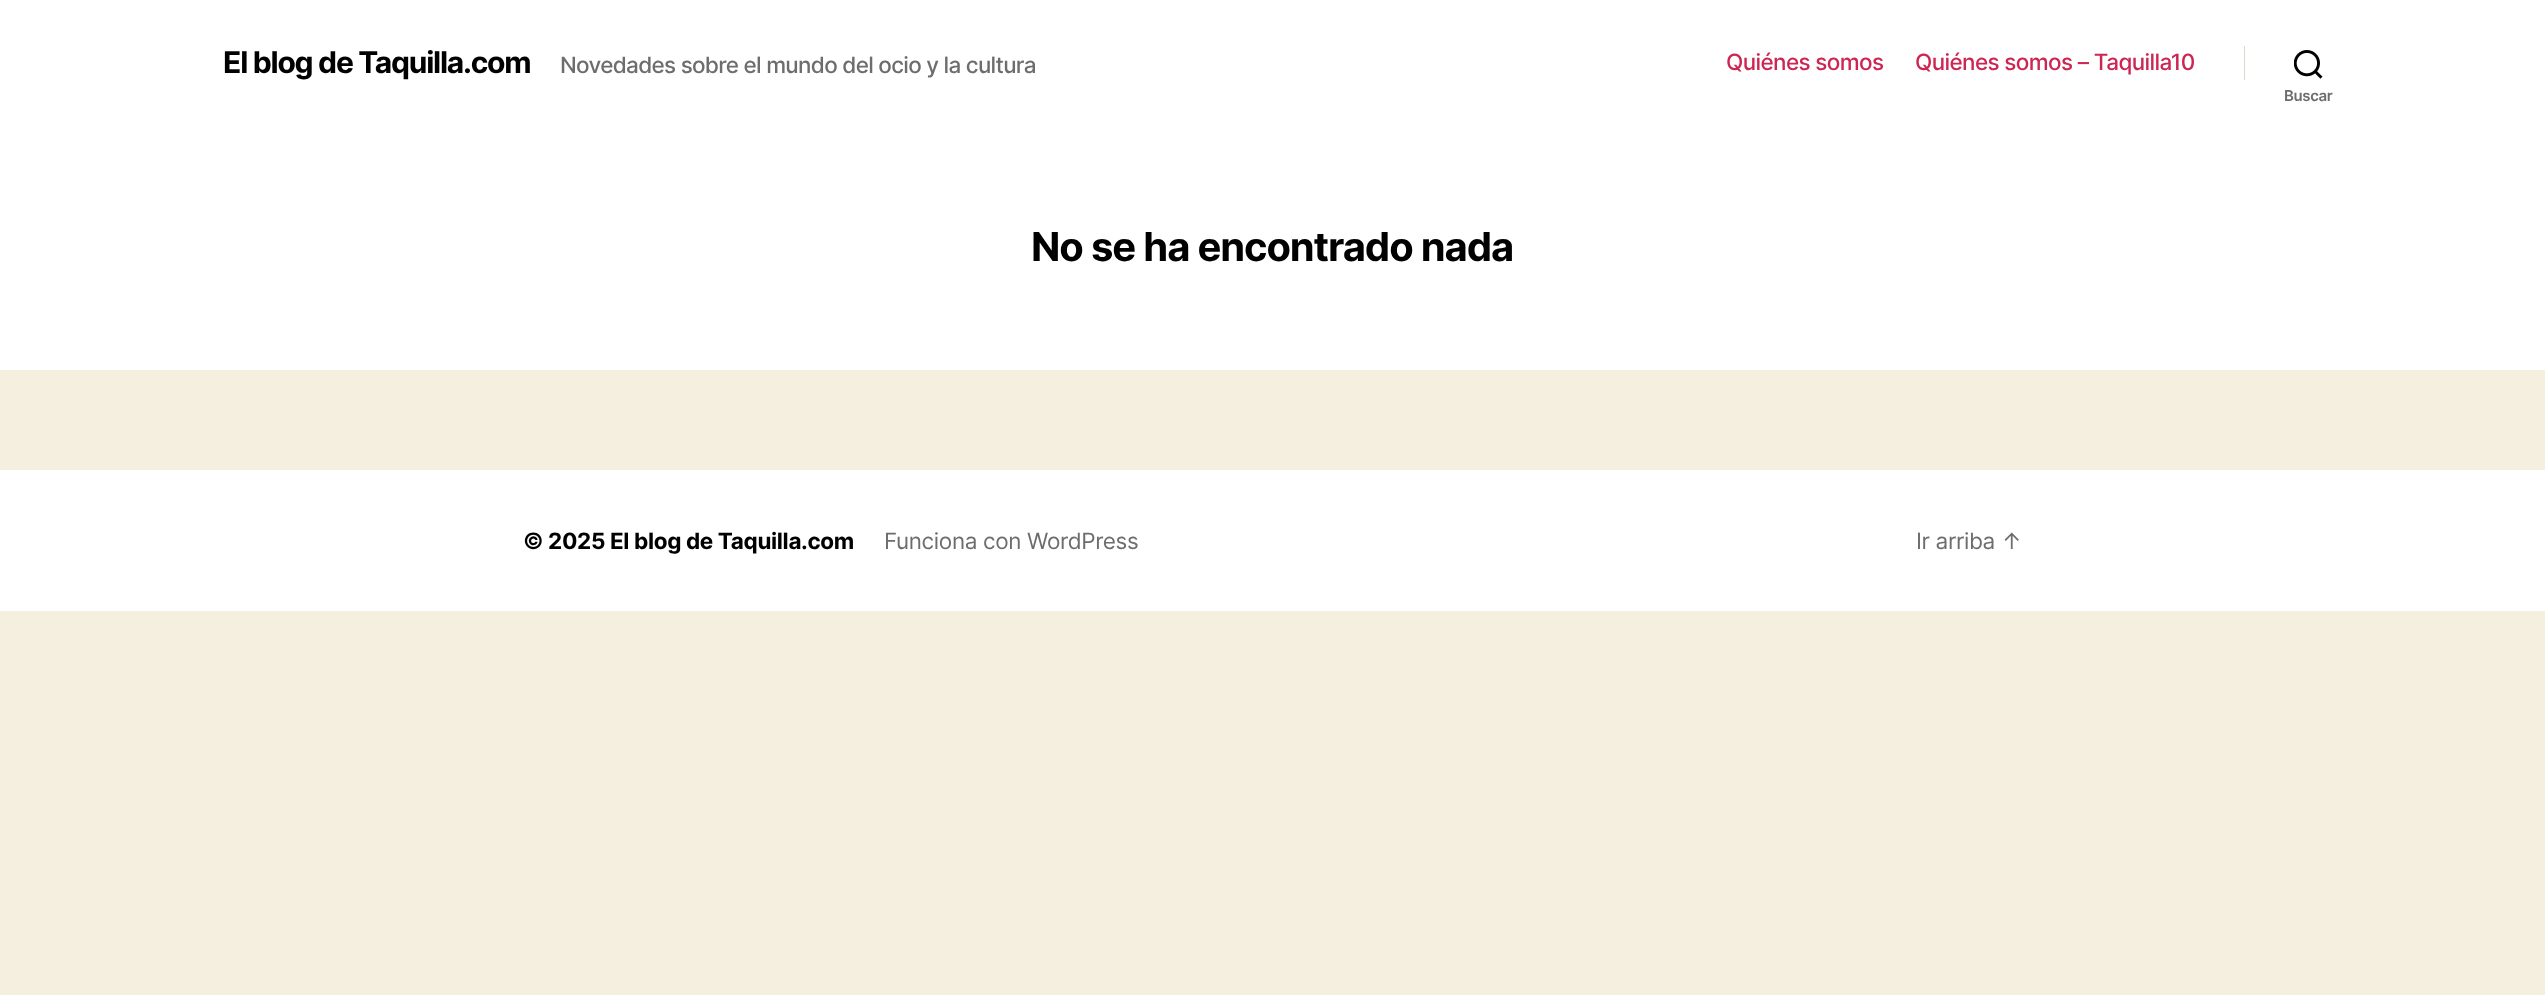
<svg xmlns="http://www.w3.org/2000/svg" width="2545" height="995">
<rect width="100%" height="100%" fill="#f5efe0"/>
<rect width="2545" height="370" fill="#fff"/>
<text x="223" y="73" style="font-family:Inter;font-size:30px;font-weight:bold;letter-spacing:-1.25px;fill:#000">El blog de Taquilla.com</text>
<text x="560" y="73" style="font-family:Inter;font-size:22.5px;font-weight:500;letter-spacing:-0.7px;fill:#6d6d6d">Novedades sobre el mundo del ocio y la cultura</text>
<text x="1726" y="70" style="font-family:Inter;font-size:22.5px;font-weight:500;letter-spacing:-0.6px;fill:#cd2653">Quiénes somos</text>
<text x="1915" y="70" style="font-family:Inter;font-size:22.5px;font-weight:500;letter-spacing:-0.6px;fill:#cd2653">Quiénes somos – Taquilla10</text>
<rect x="2244" y="46" width="1" height="34" fill="#dcd7ca"/>
<image x="2294" y="50" width="29" height="29" href="media/1.png"/>
<text x="2284" y="101" style="font-family:Inter;font-size:15px;font-weight:600;letter-spacing:-0.35px;fill:#6d6d6d">Buscar</text>
<text x="1031" y="261" style="font-family:Inter;font-size:40px;font-weight:bold;letter-spacing:-1.1px;fill:#000">No se ha encontrado nada</text>
<rect y="470" width="2545" height="141" fill="#fff"/>
<text x="523" y="549" style="font-family:Inter;font-size:22.5px;font-weight:bold;letter-spacing:-0.35px;fill:#000">© 2025 El blog de Taquilla.com</text>
<text x="884" y="549" style="font-family:Inter;font-size:22.5px;letter-spacing:-0.35px;fill:#6d6d6d">Funciona con WordPress</text>
<text x="1916" y="549" style="font-family:Inter;font-size:22.5px;letter-spacing:-0.35px;fill:#6d6d6d">Ir arriba ↑</text>
</svg>
